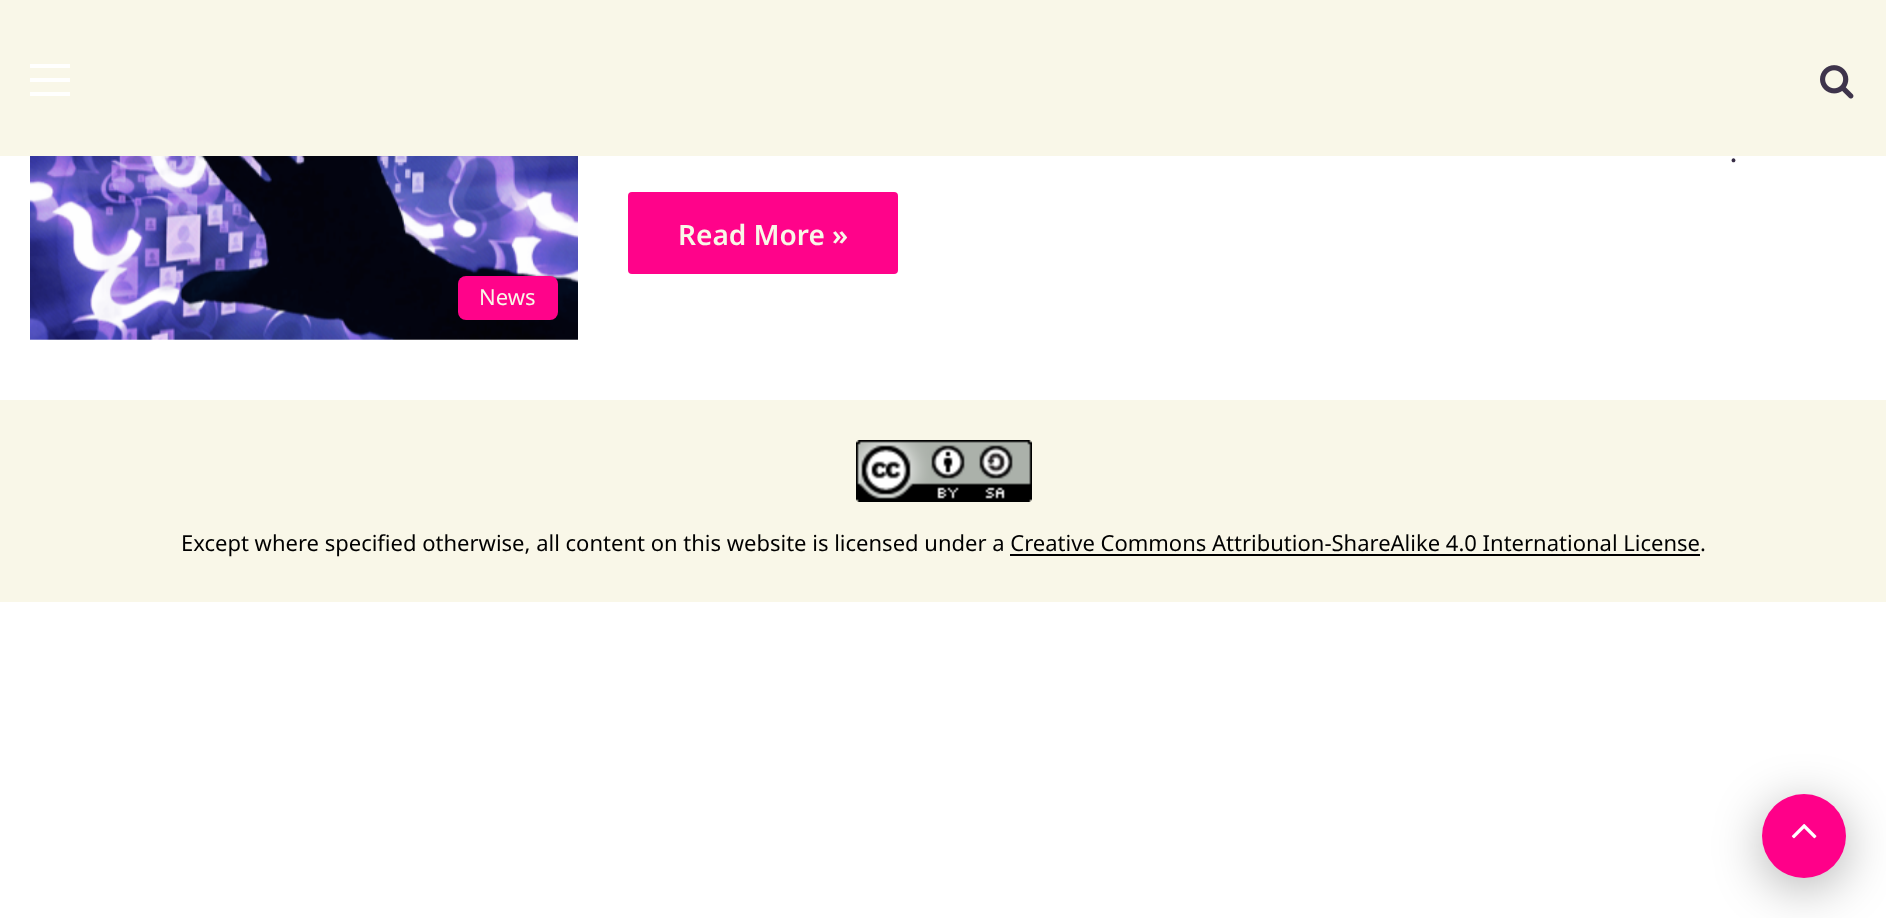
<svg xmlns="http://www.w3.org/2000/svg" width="1886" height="918">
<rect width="100%" height="100%" fill="#fff"/>
<rect width="1886" height="156" fill="#f9f7e8"/>
<rect x="30" y="78" width="40" height="4" fill="#fffffe"/>
<rect x="30" y="64" width="40" height="4" fill="#fffffe"/>
<rect x="30" y="92" width="40" height="4" fill="#fffffe"/>
<image x="1820" y="65" width="34" height="34" href="media/1.png"/>
<text x="1730" y="162" style="font-family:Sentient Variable;font-size:28px;fill:#362b44">.</text>
<rect x="628" y="192" width="270" height="82" rx="4" fill="#ff038a"/>
<text x="678" y="245" style="font-family:Noto Sans;font-size:28px;font-weight:600;fill:#f9f7e8">Read More »</text>
<image x="30" y="156" width="548" height="184" href="media/2.png"/>
<rect x="458" y="276" width="100" height="44" rx="8" fill="#ff038a"/>
<text x="479" y="305" style="font-family:Noto Sans;font-size:22px;fill:#f9f7e8">News</text>
<rect y="400" width="1886" height="202" fill="#f9f7e8"/>
<image x="856" y="440" width="176" height="62" href="media/3.png"/>
<text x="181" y="551" style="font-family:Noto Sans;font-size:22px;fill:#000">Except where specified otherwise, all content on this website is licensed under a Creative Commons Attribution-ShareAlike 4.0 International License.</text>
<rect x="1010" y="554" width="690" height="2" fill="#000"/>
<rect x="1762" y="804" width="84" height="84" rx="42" fill="#0000004d" filter="blur(25px)"/>
<circle cx="1804" cy="836" r="42" fill="#ff0089"/>
<image x="1791" y="824" width="26" height="15" href="media/4.png"/>
</svg>
